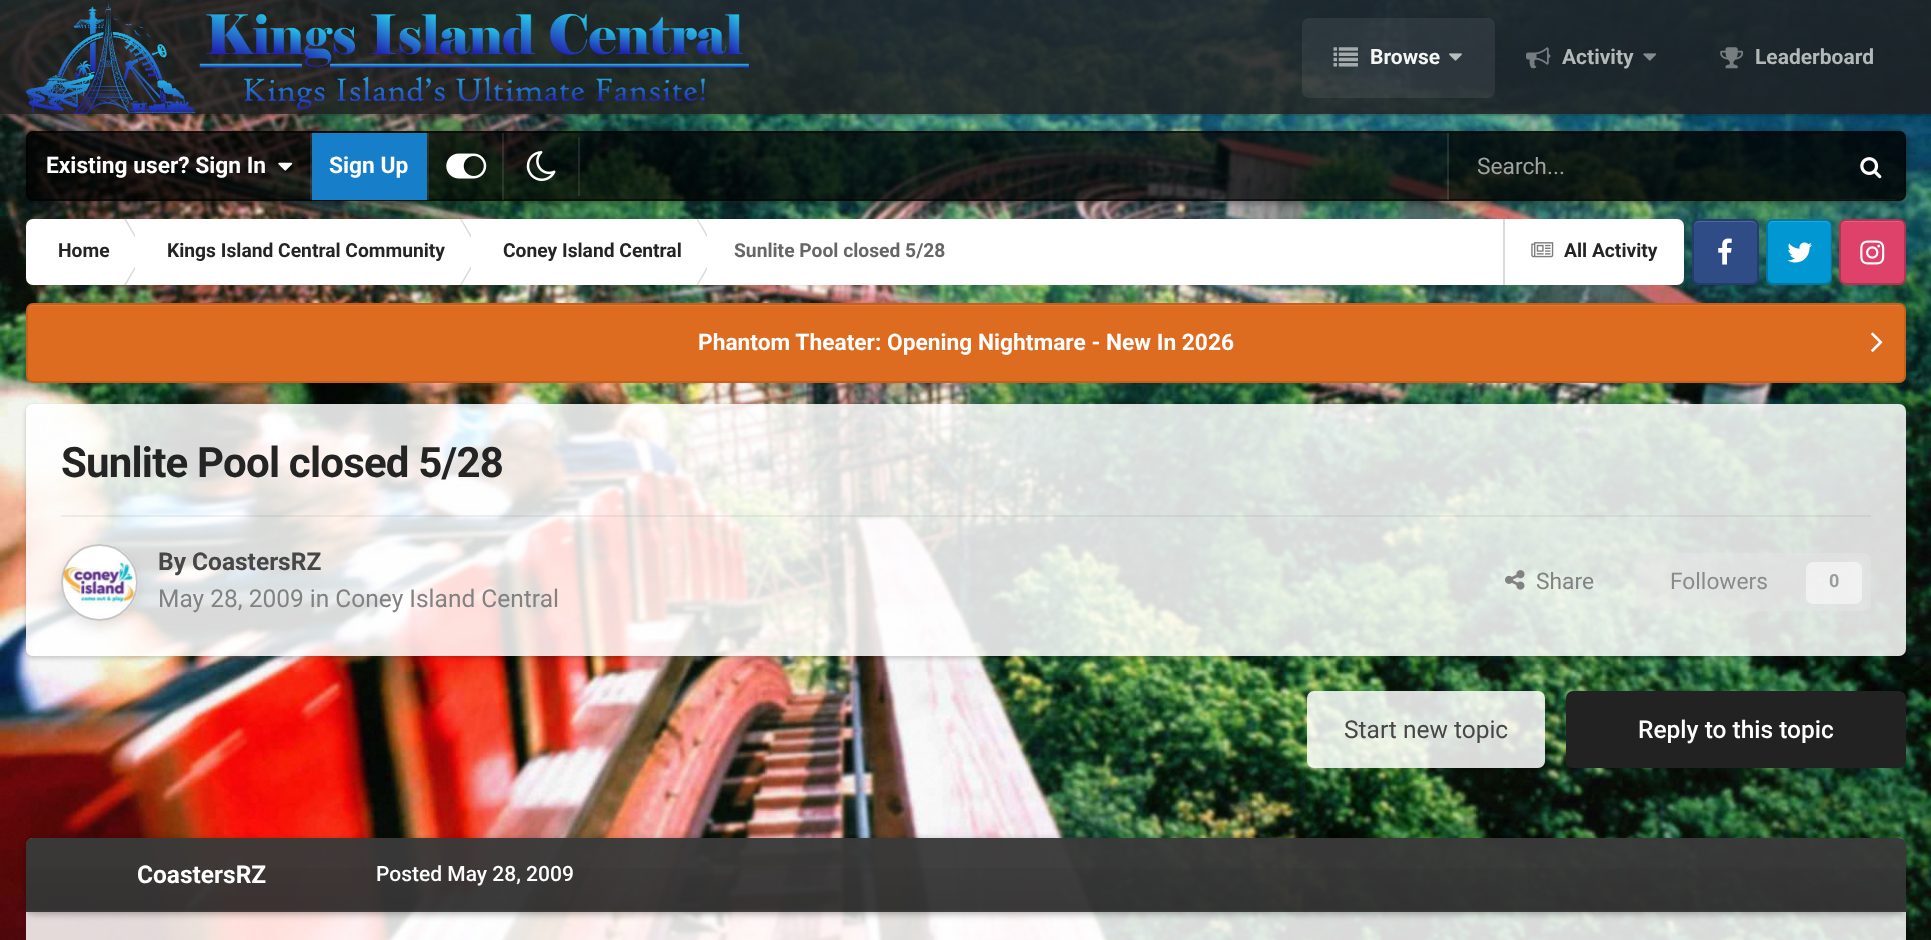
<svg xmlns="http://www.w3.org/2000/svg" width="1931" height="940">
<defs>
<clipPath id="clip1"><path d="M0 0h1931v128h-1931zm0 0h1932v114h-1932z" clip-rule="evenodd"/></clipPath>
<clipPath id="clip2"><path d="M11 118h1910v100h-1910zm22 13h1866c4 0 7 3 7 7v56c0 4-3 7-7 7h-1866c-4 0-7-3-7-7v-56c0-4 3-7 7-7z" clip-rule="evenodd"/></clipPath>
<linearGradient id="g1" gradientUnits="userSpaceOnUse" x1="855" y1="219" x2="855" y2="285"><stop offset="0" stop-color="#fff" stop-opacity="0.05"/><stop offset="1" stop-color="#fff" stop-opacity="0"/></linearGradient>
<clipPath id="clip3"><rect x="26" y="219" width="109" height="66"/></clipPath>
<clipPath id="clip4"><rect x="135" y="219" width="336" height="66"/></clipPath>
<clipPath id="clip5"><rect x="471" y="219" width="236" height="66"/></clipPath>
<clipPath id="clip6"><path d="M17 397h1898v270h-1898zm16 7h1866c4 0 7 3 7 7v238c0 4-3 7-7 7h-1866c-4 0-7-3-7-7v-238c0-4 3-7 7-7z" clip-rule="evenodd"/></clipPath>
<clipPath id="clip7"><path d="M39 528h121v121h-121zm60.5 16c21.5 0 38.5 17 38.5 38.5c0 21.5-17 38.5-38.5 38.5c-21.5 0-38.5-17-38.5-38.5c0-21.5 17-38.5 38.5-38.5z" clip-rule="evenodd"/></clipPath>
<clipPath id="clip8"><path d="M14 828h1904v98h-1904zm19 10h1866c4 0 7 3 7 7v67h-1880v-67c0-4 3-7 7-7z" clip-rule="evenodd"/></clipPath>
<linearGradient id="g2" gradientUnits="userSpaceOnUse" x1="966" y1="838" x2="966" y2="910"><stop offset="0" stop-color="#000" stop-opacity="0"/><stop offset="1" stop-color="#000" stop-opacity="0.1"/></linearGradient>
</defs>
<rect width="100%" height="100%" fill="#fff"/>
<image x="0" y="0" width="1931" height="940" href="media/1.png"/>
<image x="0" y="0" width="1931" height="940" href="media/2.png"/>
<rect y="114" width="1931" height="2" fill="#0000001a"/>
<g clip-path="url(#clip1)">
<rect y="2" width="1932" height="114" fill="#00000026" filter="blur(3.5px)"/>
</g>
<rect width="1931" height="114" fill="#1e1e1ed9"/>
<image x="26" y="1" width="723" height="113" href="media/3.png"/>
<rect x="1302" y="18" width="193" height="80" rx="7" fill="#f3f6f414"/>
<image x="1333" y="47" width="25" height="20" href="media/4.png"/>
<text x="1370" y="64" style="font-family:Roboto;font-size:21px;font-weight:bold;fill:#f3f6f4">Browse</text>
<image x="1449" y="53" width="13" height="8" href="media/5.png"/>
<image x="1526" y="47" width="25" height="22" href="media/6.png"/>
<text x="1562" y="64" style="font-family:Roboto;font-size:21px;font-weight:bold;fill:#b3b8b8">Activity</text>
<image x="1643" y="53" width="14" height="8" href="media/7.png"/>
<image x="1720" y="47" width="23" height="22" href="media/8.png"/>
<text x="1755" y="64" style="font-family:Roboto;font-size:21px;font-weight:bold;fill:#b3b8b8">Leaderboard</text>
<g clip-path="url(#clip2)">
<rect x="26" y="133" width="1880" height="70" rx="7" fill="#00000066" filter="blur(4.5px)"/>
</g>
<rect x="26" y="131" width="1880" height="70" rx="7" fill="#000000bf"/>
<rect x="27" y="132" width="1878" height="68" rx="6" fill="none" stroke="#00000080" stroke-width="2"/>
<rect x="310" y="133" width="2" height="67" fill="#ffffff1a"/>
<text x="46" y="173" style="font-family:Roboto;font-size:22.75px;font-weight:bold;fill:#fff">Existing user? Sign In</text>
<image x="278" y="162" width="15" height="9" href="media/9.png"/>
<rect x="427" y="133" width="2" height="67" fill="#ffffff1a"/>
<rect x="312" y="133" width="115" height="67" fill="#177ec9"/>
<text x="329" y="173" style="font-family:Roboto;font-size:22.75px;font-weight:bold;fill:#fff">Sign Up</text>
<rect x="502" y="133" width="2" height="67" fill="#ffffff1a"/>
<image x="446" y="153" width="41" height="26" href="media/10.png"/>
<rect x="578" y="137" width="2" height="59" fill="#ffffff1a"/>
<image x="526" y="151" width="30" height="30" href="media/11.png"/>
<path d="M1447 133v67h448l3-1l-449 1v-67z" fill="#ffffff1a"/>
<path d="M1449 133h448c4 0 7 3 7 7v53c0 4-3 7-7 7h-448z" fill="#0000004d"/>
<text x="1477" y="174" style="font-family:Roboto;font-size:22.75px;fill:#9fa3a2">Search...</text>
<image x="1860" y="157" width="22" height="22" href="media/12.png"/>
<rect x="26" y="219" width="1658" height="66" rx="7" fill="#fff"/>
<rect x="26" y="219" width="1658" height="5" fill="url(#g1)"/>
<g clip-path="url(#clip3)">
<path d="M124 219h2l19 33h-1.5z" fill="#dadada"/>
</g>
<text x="58" y="257" style="font-family:Roboto;font-size:19.25px;font-weight:bold;fill:#242424">Home</text>
<g clip-path="url(#clip3)">
<path d="M124 285h2l19-33h-1.5z" fill="#dadada"/>
</g>
<g clip-path="url(#clip4)">
<path d="M460 219h1.5l19.5 33h-2z" fill="#dadada"/>
</g>
<text x="167" y="257" style="font-family:Roboto;font-size:19.25px;font-weight:bold;fill:#242424">Kings Island Central Community</text>
<g clip-path="url(#clip4)">
<path d="M460 285h1.5l19.5-33h-2z" fill="#dadada"/>
</g>
<g clip-path="url(#clip5)">
<path d="M696.5 219h1.5l19.5 33h-2z" fill="#dadada"/>
</g>
<text x="503" y="257" style="font-family:Roboto;font-size:19.25px;font-weight:bold;fill:#242424">Coney Island Central</text>
<g clip-path="url(#clip5)">
<path d="M696.5 285h1.5l19.5-33h-2z" fill="#dadada"/>
</g>
<text x="734" y="257" style="font-family:Roboto;font-size:19.25px;font-weight:bold;fill:#666">Sunlite Pool closed 5/28</text>
<rect x="1503" y="219" width="2" height="66" fill="#dadada"/>
<image x="1531" y="242" width="23" height="16" href="media/13.png"/>
<text x="1564" y="257" style="font-family:Roboto;font-size:19.25px;font-weight:bold;fill:#242424">All Activity</text>
<rect x="1692" y="221" width="67" height="66" rx="7" fill="#0000001a" filter="blur(2.5px)"/>
<rect x="1692" y="219" width="67" height="66" rx="7" fill="#304c87"/>
<path d="M1699 222c-3 0-5 3-5 6c0-9 6-7 14-7h35c8 0 14-2 14 7c0-3-2-6-5-6z" fill="#4f6799"/>
<image x="1718" y="238" width="14" height="27" href="media/14.png"/>
<rect x="1693" y="220" width="65" height="64" rx="6" fill="none" stroke="#00000033" stroke-width="2"/>
<rect x="1766" y="221" width="66" height="66" rx="7" fill="#0000001a" filter="blur(2.5px)"/>
<rect x="1766" y="219" width="66" height="66" rx="7" fill="#0097d3"/>
<image x="1787" y="242" width="25" height="21" href="media/15.png"/>
<path d="M1773 222c-3 0-5 3-5 6v-2c0-3 2-5 5-5h53c3 0 5 2 5 5v53c0 1-1 3-2 4l1-3v-52c0-3-2-6-5-6z" fill="#26a7da"/>
<rect x="1767" y="220" width="64" height="64" rx="6" fill="none" stroke="#00000033" stroke-width="2"/>
<rect x="1839" y="221" width="67" height="66" rx="7" fill="#0000001a" filter="blur(2.5px)"/>
<rect x="1839" y="219" width="67" height="66" rx="7" fill="#de416a"/>
<path d="M1846 222c-3 0-5 3-5 6c0-9 6-7 14-7h35c8 0 14-2 14 7c0-3-2-6-5-6z" fill="#e35e80"/>
<image x="1860" y="240" width="25" height="25" href="media/16.png"/>
<rect x="1840" y="220" width="65" height="64" rx="6" fill="none" stroke="#00000033" stroke-width="2"/>
<rect x="26" y="303" width="1880" height="80" rx="7" fill="#dd6b20"/>
<path d="M33 306h1866c3 0 5 3 5 6c0-3-1-7-5-7h-1866c-4 0-5 4-5 7c0-3 2-6 5-6z" fill="#e07a36"/>
<rect x="27" y="304" width="1878" height="78" rx="6" fill="none" stroke="#0000001a" stroke-width="2"/>
<text x="698" y="350" style="font-family:Roboto;font-size:22.75px;font-weight:bold;fill:#fff">Phantom Theater: Opening Nightmare - New In 2026</text>
<image x="1871" y="332" width="12" height="20" href="media/17.png"/>
<g clip-path="url(#clip6)">
<rect x="26" y="406" width="1880" height="252" rx="7" fill="#00000033" filter="blur(2.5px)"/>
</g>
<rect x="26" y="404" width="1880" height="252" rx="7" fill="#ffffffd9"/>
<text x="61" y="477" style="font-family:Roboto;font-size:42px;font-weight:bold;letter-spacing:-0.8px;fill:#242424">Sunlite Pool closed 5/28</text>
<rect x="61" y="515" width="1810" height="2" fill="#47474714"/>
<circle cx="99.5" cy="582.5" r="38.5" fill="#fff"/>
<image x="61" y="544" width="78" height="75" href="media/18.png"/>
<g clip-path="url(#clip7)">
<rect x="61" y="550" width="77" height="77" rx="38.5" fill="#0000001a" filter="blur(7px)"/>
</g>
<circle cx="99.5" cy="582.5" r="37.5" fill="none" stroke="#4747474d" stroke-width="2"/>
<text x="158" y="570" style="font-family:Roboto;font-size:24.5px;font-weight:bold;fill:#474747">By CoastersRZ</text>
<text x="158" y="607" style="font-family:Roboto;font-size:24.5px;fill:#828282">May 28, 2009 in Coney Island Central</text>
<image x="1505" y="570" width="20" height="20" href="media/19.png"/>
<text x="1536" y="589" style="font-family:Roboto;font-size:22.75px;fill:#828282">Share</text>
<rect x="1636" y="553" width="235" height="58" rx="7" fill="#e5e5e580"/>
<text x="1670" y="589" style="font-family:Roboto;font-size:22.75px;fill:#898b8a">Followers</text>
<rect x="1806" y="562" width="56" height="42" rx="7" fill="#ffffff80"/>
<text x="1829" y="587" style="font-family:Roboto;font-size:18px;font-weight:bold;fill:#9b9c9c">0</text>
<rect x="1307" y="691" width="238" height="77" rx="7" fill="#ffffffd9"/>
<text x="1344" y="738" style="font-family:Roboto;font-size:24.5px;fill:#474747">Start new topic</text>
<rect x="1566" y="691" width="340" height="77" rx="7" fill="#222"/>
<text x="1638" y="738" style="font-family:Roboto;font-size:24.5px;font-weight:500;fill:#fff">Reply to this topic</text>
<rect x="26" y="838" width="1880" height="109" rx="7" fill="#ffffffd9"/>
<g clip-path="url(#clip8)">
<rect x="26" y="840" width="1880" height="74" rx="7" fill="#0000004d" filter="blur(3.5px)"/>
</g>
<path d="M33 838h1866c4 0 7 3 7 7v67h-1880v-67c0-4 3-7 7-7z" fill="#000000bf"/>
<rect x="26" y="868" width="1880" height="42" fill="url(#g2)"/>
<text x="137" y="883" style="font-family:Roboto;font-size:24.5px;font-weight:bold;fill:#fff">CoastersRZ</text>
<text x="376" y="881" style="font-family:Roboto;font-size:21px;font-weight:500;fill:#fff">Posted May 28, 2009</text>
</svg>
